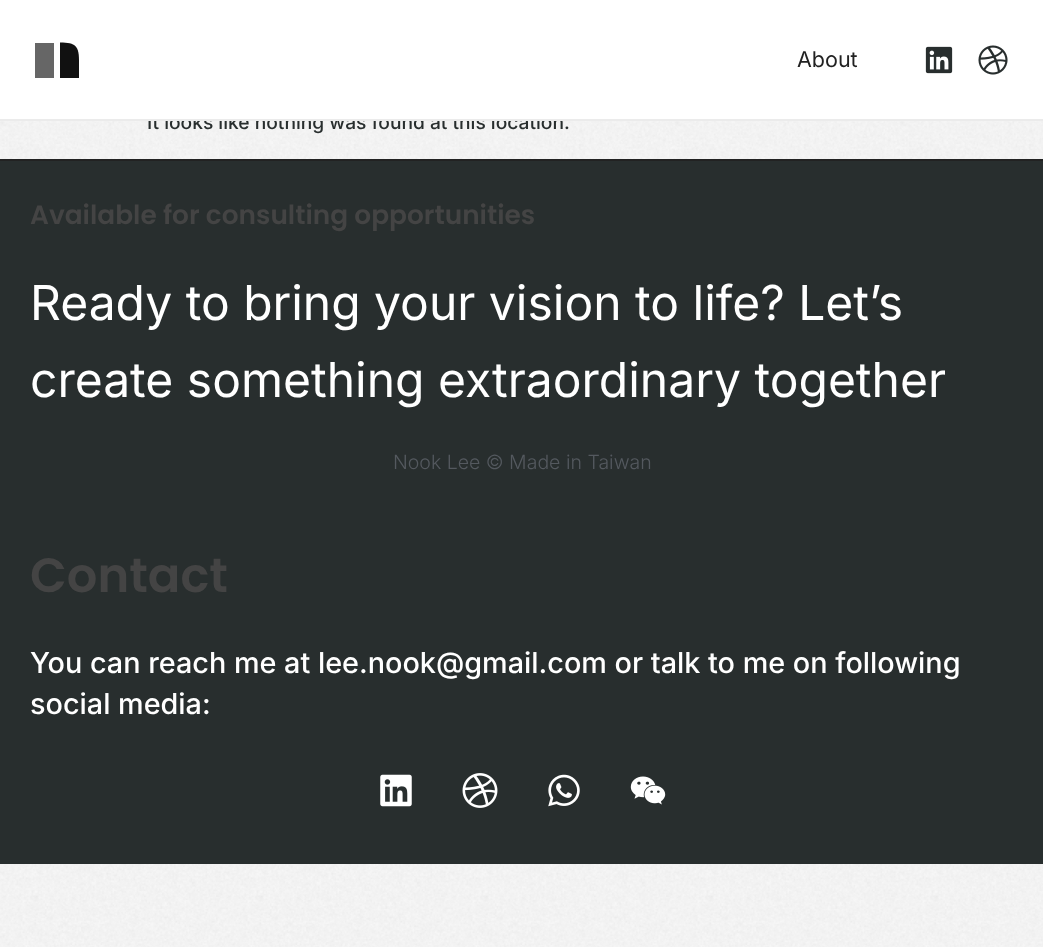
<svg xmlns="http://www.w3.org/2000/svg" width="1043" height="947">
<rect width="100%" height="100%" fill="#f8f8f8"/>
<image x="0" y="121" width="1043" height="826" href="media/1.png"/>
<text x="147" y="129" style="font-family:Inter;font-size:19.2px;font-weight:500;fill:#282e2e">It looks like nothing was found at this location.</text>
<rect width="1043" height="119" fill="#fff"/>
<rect y="119" width="1043" height="2" fill="#ebebeb"/>
<rect x="35" y="43" width="19" height="35" fill="#666"/>
<path d="M60 42.5c16 0 19 4 19 18.5v17h-19z" fill="#111"/>
<text x="797" y="67" style="font-family:Inter;font-size:21.5px;fill:#222">About</text>
<image x="925" y="46" width="28" height="28" href="media/2.png"/>
<image x="978" y="45" width="30" height="30" href="media/3.png"/>
<rect y="161" width="1043" height="703" fill="#282e2e"/>
<rect y="159" width="1043" height="2" fill="#222"/>
<text x="30" y="224" style="font-family:Poppins;font-size:26.4px;font-weight:600;fill:#444">Available for consulting opportunities</text>
<text x="30" y="320" style="font-family:Inter;font-size:48px;fill:#fff">Ready to bring your vision to life? Let’s</text>
<text x="30" y="397" style="font-family:Inter;font-size:48px;fill:#fff">create something extraordinary together</text>
<text x="393" y="469" style="font-family:Inter;font-size:19.5px;font-weight:300;fill:#54595f">Nook Lee © Made in Taiwan</text>
<text x="30" y="592" style="font-family:Poppins;font-size:48px;font-weight:600;fill:#444">Contact</text>
<text x="30" y="673" style="font-family:Inter;font-size:28.8px;font-weight:500;fill:#fff">You can reach me at lee.nook@gmail.com or talk to me on following</text>
<text x="30" y="714" style="font-family:Inter;font-size:28.8px;font-weight:500;fill:#fff">social media:</text>
<image x="380" y="774" width="32" height="33" href="media/4.png"/>
<image x="462" y="773" width="36" height="35" href="media/5.png"/>
<image x="548" y="774" width="32" height="33" href="media/6.png"/>
<image x="630" y="776" width="36" height="29" href="media/7.png"/>
</svg>
